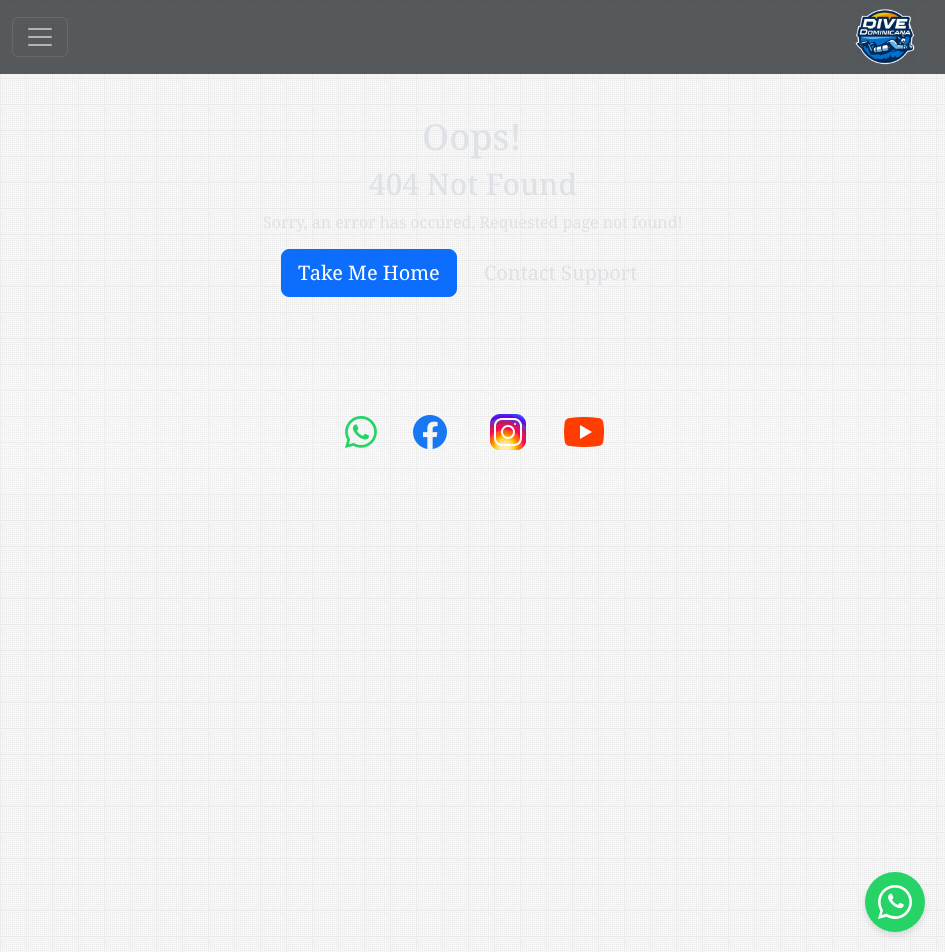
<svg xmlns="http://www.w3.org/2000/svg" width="945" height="952">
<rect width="100%" height="100%" fill="#fff"/>
<image x="0" y="0" width="945" height="952" href="media/1.png"/>
<rect width="945" height="74" fill="#212529bf"/>
<rect x="12.5" y="17.5" width="55" height="39" rx="5.5" fill="none" stroke="#ffffff1a"/>
<image x="28" y="28" width="24" height="18" href="media/2.png"/>
<image x="855" y="9" width="60" height="56" href="media/3.png"/>
<text x="422" y="150" style="font-family:Noto Serif;font-size:36px;font-weight:500;fill:#dee2e6">Oops!</text>
<text x="369" y="195" style="font-family:Noto Serif;font-size:29.75px;font-weight:500;fill:#dee2e6">404 Not Found</text>
<text x="263" y="228" style="font-family:Noto Serif;font-size:16px;fill:#dee2e6">Sorry, an error has occured, Requested page not found!</text>
<rect x="281.5" y="249.5" width="175" height="47" rx="7.5" fill="#0d6efd" stroke="#0d6efd"/>
<text x="298" y="280" style="font-family:Noto Serif;font-size:20px;fill:#fff">Take Me Home</text>
<text x="484" y="280" style="font-family:Noto Serif;font-size:20px;fill:#dee2e6">Contact Support</text>
<rect y="368" width="945" height="127" fill="#ffffff1f"/>
<rect x="338" y="387" width="261" height="1" fill="#f8f9fa"/>
<image x="345" y="416" width="32" height="32" href="media/4.png"/>
<image x="413" y="415" width="34" height="34" href="media/5.png"/>
<image x="490" y="414" width="36" height="36" href="media/6.png"/>
<image x="564" y="417" width="41" height="30" href="media/7.png"/>
<rect x="865" y="876" width="60" height="60" rx="30" fill="#0000001a" filter="blur(3px)"/>
<circle cx="895" cy="902" r="30" fill="#25d366"/>
<image x="878" y="885" width="34" height="34" href="media/8.png"/>
</svg>
